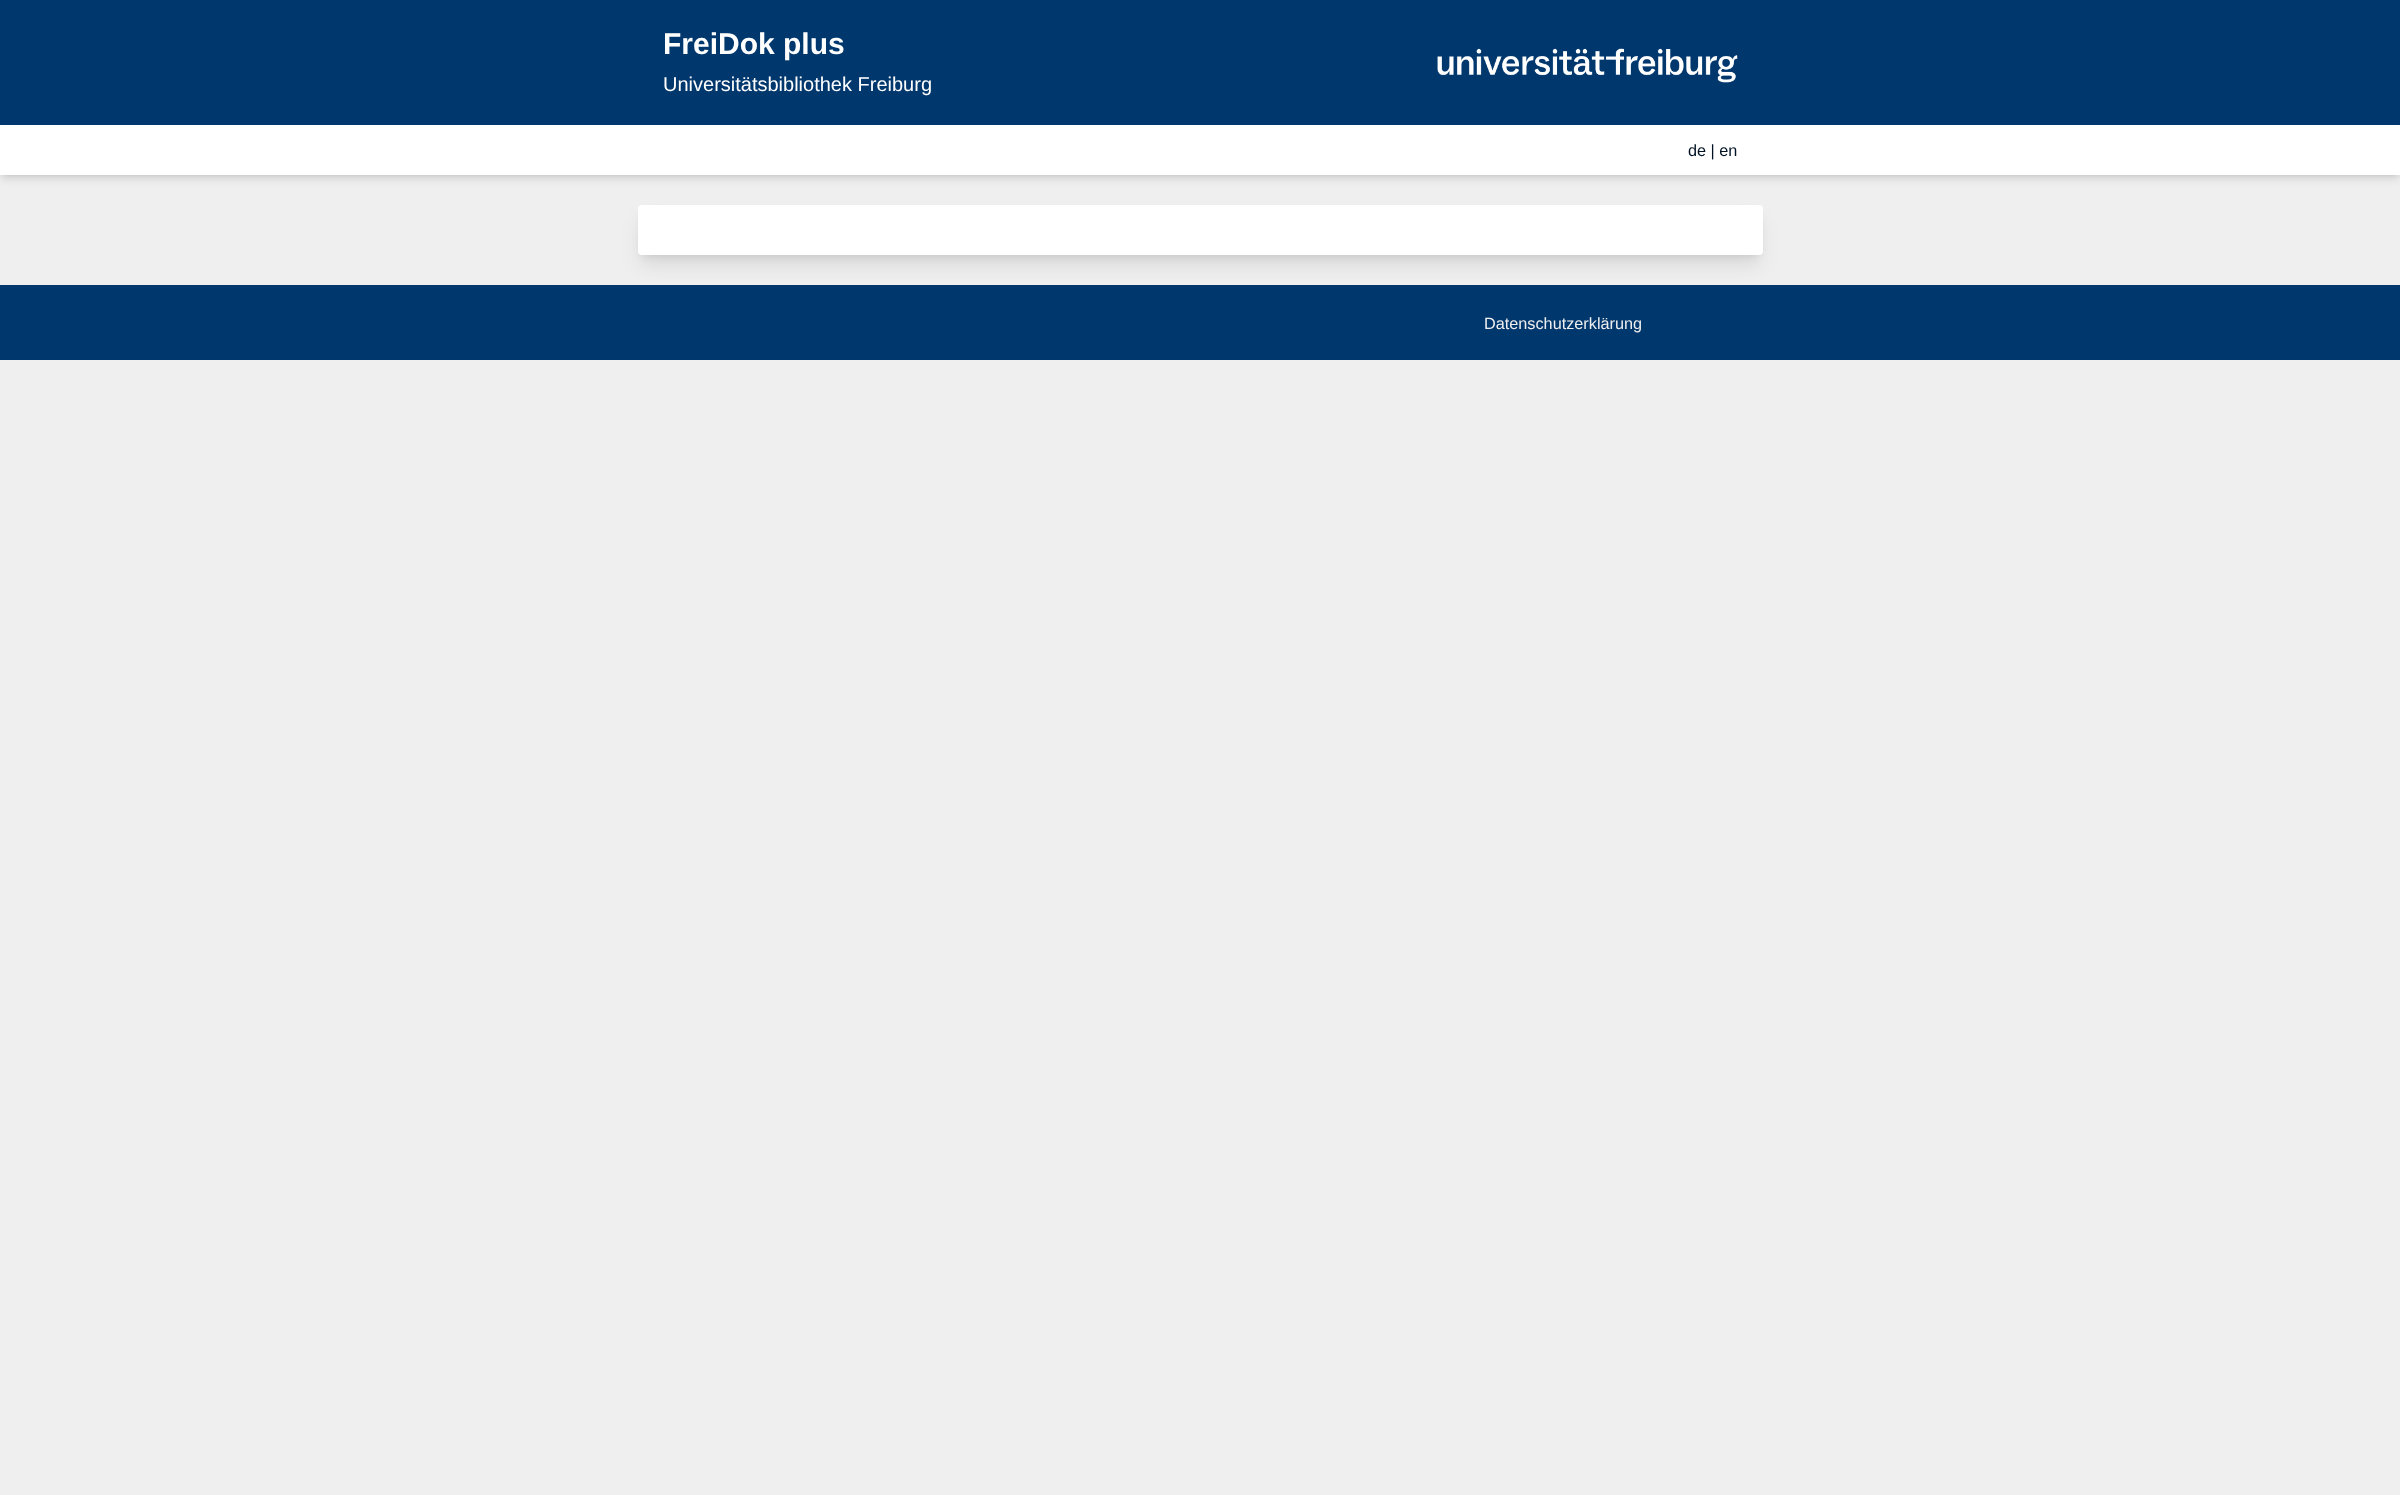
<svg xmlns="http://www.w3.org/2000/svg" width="2400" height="1495">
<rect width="100%" height="100%" fill="#efefef"/>
<rect width="2400" height="125" fill="#00376d"/>
<text x="663" y="54" style="font-family:Liberation Sans;font-size:30px;font-weight:bold;fill:#fff">FreiDok plus</text>
<text x="663" y="91" style="font-family:Liberation Sans;font-size:20px;fill:#fff">Universitätsbibliothek Freiburg</text>
<image x="1437" y="48" width="301" height="35" href="media/1.png"/>
<rect x="3" y="130" width="2395" height="45" fill="#0000001a" filter="blur(2.5px)"/>
<rect x="1" y="131" width="2398" height="48" fill="#0000001a" filter="blur(4px)"/>
<rect y="125" width="2400" height="50" fill="#fff"/>
<text x="1688" y="156" style="font-family:Liberation Sans;font-size:16.25px;fill:#001224">de | en</text>
<rect x="643" y="215" width="1115" height="40" fill="#0000001a" filter="blur(4px)"/>
<rect y="285" width="2400" height="75" fill="#00376d"/>
<rect x="641" y="221" width="1118" height="43" fill="#0000001a" filter="blur(9.5px)"/>
<rect x="638" y="205" width="1125" height="50" rx="4" fill="#fff"/>
<text x="1484" y="329" style="font-family:Liberation Sans;font-size:16.25px;fill:#efefef">Datenschutzerklärung</text>
</svg>
